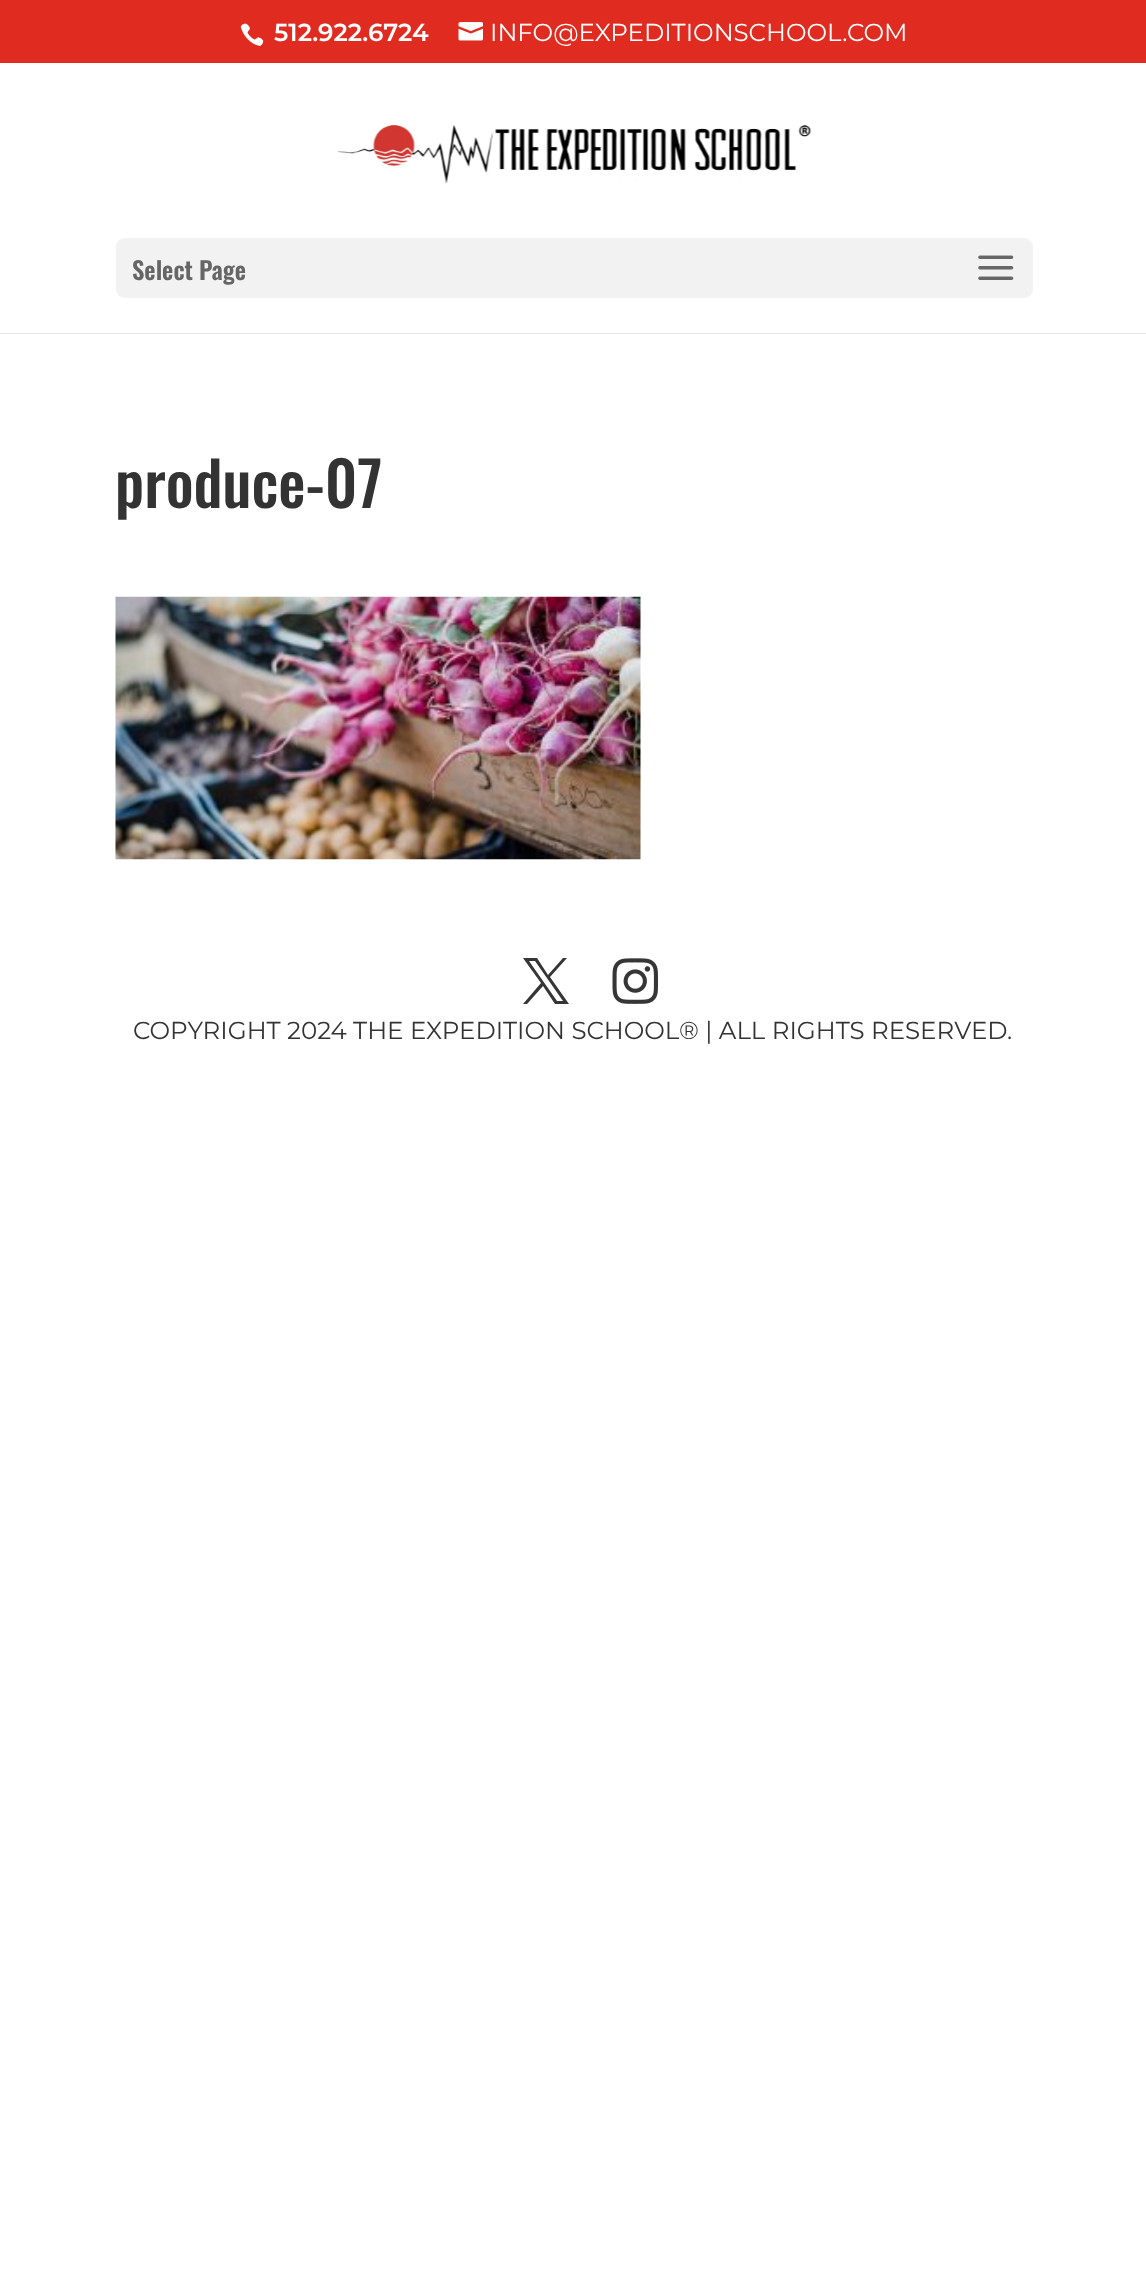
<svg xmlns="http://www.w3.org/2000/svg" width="1146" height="2292">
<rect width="100%" height="100%" fill="#fff"/>
<rect width="1146" height="63" fill="#e02b20"/>
<image x="240" y="23" width="24" height="23" href="media/1.png"/>
<text x="274" y="41" style="font-family:Montserrat;font-size:24.5px;font-weight:600;fill:#fff">512.922.6724</text>
<image x="458" y="22" width="25" height="19" href="media/2.png"/>
<text x="490" y="41" style="font-family:Montserrat;font-size:24.5px;fill:#fff">INFO@EXPEDITIONSCHOOL.COM</text>
<rect y="333" width="1146" height="1" fill="#e6e6e6"/>
<image x="337" y="124" width="474" height="60" href="media/3.png"/>
<rect x="116" y="238" width="917" height="60" rx="9" fill="#f2f2f2"/>
<text x="132" y="280" style="font-family:Oswald;font-size:24.5px;font-weight:600;fill:#666">Select Page</text>
<image x="978" y="255" width="36" height="25" href="media/4.png"/>
<text x="115" y="508" style="font-family:Oswald;font-size:61.25px;font-weight:500;fill:#333">produce-07</text>
<image x="115" y="596" width="526" height="264" href="media/5.png"/>
<path d="M523 958l18 25l-18 21h4l16-18l12 18h14l-19-27l17-19h-4l-15 17l-11-17zm6 3h6l28 40h-6z" fill="#363636"/>
<image x="612" y="958" width="46" height="46" href="media/6.png"/>
<text x="133" y="1039" style="font-family:Montserrat;font-size:24.5px;fill:#333">COPYRIGHT 2024 THE EXPEDITION SCHOOL® | ALL RIGHTS RESERVED.</text>
</svg>
